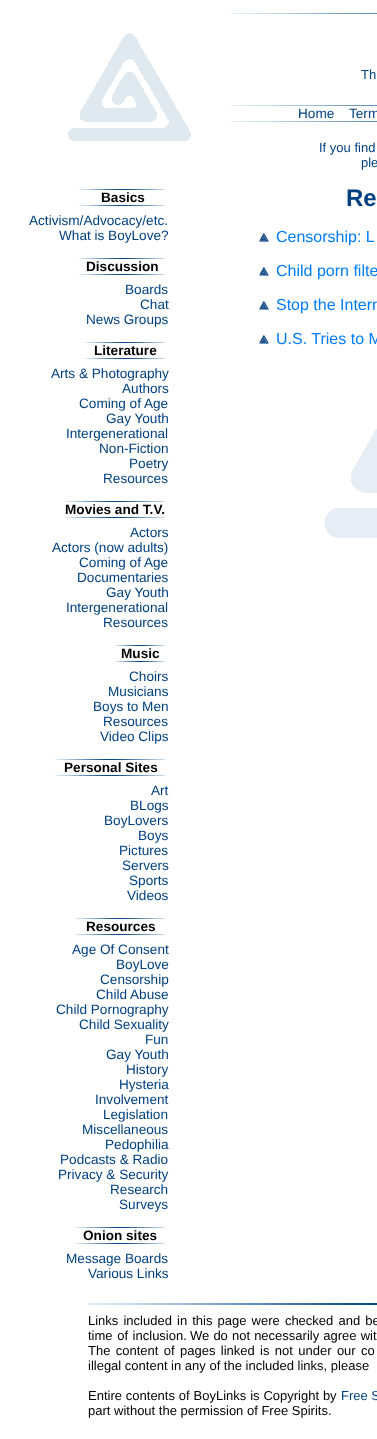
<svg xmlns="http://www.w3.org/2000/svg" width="377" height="1439">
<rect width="100%" height="100%" fill="#fff"/>
<image x="68" y="33" width="123" height="108" href="media/1.png"/>
<image x="231" y="13" width="146" height="1" href="media/2.png"/>
<text x="361" y="79" style="font-family:Liberation Sans;font-size:13px;fill:#004080">Th</text>
<image x="231" y="105" width="146" height="1" href="media/2.png"/>
<text x="298" y="118" style="font-family:Liberation Sans;font-size:13.6px;fill:#004080">Home</text>
<text x="349" y="118" style="font-family:Liberation Sans;font-size:13.6px;fill:#004080">Term</text>
<image x="231" y="121" width="146" height="1" href="media/2.png"/>
<text x="319" y="152" style="font-family:Liberation Sans;font-size:13px;fill:#004080">If you find</text>
<text x="361" y="167" style="font-family:Liberation Sans;font-size:13px;fill:#004080">ple</text>
<image x="79" y="189" width="86" height="1" href="media/3.png"/>
<text x="101" y="202" style="font-family:Liberation Sans;font-size:13.6px;font-weight:bold;fill:#000">Basics</text>
<image x="79" y="205" width="86" height="1" href="media/3.png"/>
<text x="29" y="225" style="font-family:Liberation Sans;font-size:13.6px;fill:#004080">Activism/Advocacy/etc.</text>
<text x="59" y="240" style="font-family:Liberation Sans;font-size:13.6px;fill:#004080">What is BoyLove?</text>
<image x="79" y="258" width="86" height="1" href="media/3.png"/>
<text x="86" y="271" style="font-family:Liberation Sans;font-size:13.6px;font-weight:bold;fill:#000">Discussion</text>
<image x="79" y="274" width="86" height="1" href="media/3.png"/>
<text x="125" y="294" style="font-family:Liberation Sans;font-size:13.6px;fill:#004080">Boards</text>
<text x="140" y="309" style="font-family:Liberation Sans;font-size:13.6px;fill:#004080">Chat</text>
<text x="86" y="324" style="font-family:Liberation Sans;font-size:13.6px;fill:#004080">News Groups</text>
<image x="85" y="342" width="80" height="1" href="media/4.png"/>
<text x="94" y="355" style="font-family:Liberation Sans;font-size:13.6px;font-weight:bold;fill:#000">Literature</text>
<image x="85" y="358" width="80" height="1" href="media/4.png"/>
<text x="51" y="378" style="font-family:Liberation Sans;font-size:13.6px;fill:#004080">Arts &amp; Photography</text>
<text x="122" y="393" style="font-family:Liberation Sans;font-size:13.6px;fill:#004080">Authors</text>
<text x="79" y="408" style="font-family:Liberation Sans;font-size:13.6px;fill:#004080">Coming of Age</text>
<text x="106" y="423" style="font-family:Liberation Sans;font-size:13.6px;fill:#004080">Gay Youth</text>
<text x="66" y="438" style="font-family:Liberation Sans;font-size:13.6px;fill:#004080">Intergenerational</text>
<text x="99" y="453" style="font-family:Liberation Sans;font-size:13.6px;fill:#004080">Non-Fiction</text>
<text x="129" y="468" style="font-family:Liberation Sans;font-size:13.6px;fill:#004080">Poetry</text>
<text x="103" y="483" style="font-family:Liberation Sans;font-size:13.6px;fill:#004080">Resources</text>
<image x="65" y="501" width="100" height="1" href="media/5.png"/>
<text x="65" y="514" style="font-family:Liberation Sans;font-size:13.6px;font-weight:bold;fill:#000">Movies and T.V.</text>
<image x="65" y="517" width="100" height="1" href="media/5.png"/>
<text x="130" y="537" style="font-family:Liberation Sans;font-size:13.6px;fill:#004080">Actors</text>
<text x="52" y="552" style="font-family:Liberation Sans;font-size:13.6px;fill:#004080">Actors (now adults)</text>
<text x="79" y="567" style="font-family:Liberation Sans;font-size:13.6px;fill:#004080">Coming of Age</text>
<text x="77" y="582" style="font-family:Liberation Sans;font-size:13.6px;fill:#004080">Documentaries</text>
<text x="106" y="597" style="font-family:Liberation Sans;font-size:13.6px;fill:#004080">Gay Youth</text>
<text x="66" y="612" style="font-family:Liberation Sans;font-size:13.6px;fill:#004080">Intergenerational</text>
<text x="103" y="627" style="font-family:Liberation Sans;font-size:13.6px;fill:#004080">Resources</text>
<image x="115" y="645" width="50" height="1" href="media/6.png"/>
<text x="121" y="658" style="font-family:Liberation Sans;font-size:13.6px;font-weight:bold;fill:#000">Music</text>
<image x="115" y="661" width="50" height="1" href="media/6.png"/>
<text x="129" y="681" style="font-family:Liberation Sans;font-size:13.6px;fill:#004080">Choirs</text>
<text x="108" y="696" style="font-family:Liberation Sans;font-size:13.6px;fill:#004080">Musicians</text>
<text x="93" y="711" style="font-family:Liberation Sans;font-size:13.6px;fill:#004080">Boys to Men</text>
<text x="103" y="726" style="font-family:Liberation Sans;font-size:13.6px;fill:#004080">Resources</text>
<text x="100" y="741" style="font-family:Liberation Sans;font-size:13.6px;fill:#004080">Video Clips</text>
<image x="55" y="759" width="110" height="1" href="media/7.png"/>
<text x="64" y="772" style="font-family:Liberation Sans;font-size:13.6px;font-weight:bold;fill:#000">Personal Sites</text>
<image x="55" y="775" width="110" height="1" href="media/7.png"/>
<text x="151" y="795" style="font-family:Liberation Sans;font-size:13.6px;fill:#004080">Art</text>
<text x="130" y="810" style="font-family:Liberation Sans;font-size:13.6px;fill:#004080">BLogs</text>
<text x="104" y="825" style="font-family:Liberation Sans;font-size:13.6px;fill:#004080">BoyLovers</text>
<text x="138" y="840" style="font-family:Liberation Sans;font-size:13.6px;fill:#004080">Boys</text>
<text x="119" y="855" style="font-family:Liberation Sans;font-size:13.6px;fill:#004080">Pictures</text>
<text x="122" y="870" style="font-family:Liberation Sans;font-size:13.6px;fill:#004080">Servers</text>
<text x="129" y="885" style="font-family:Liberation Sans;font-size:13.6px;fill:#004080">Sports</text>
<text x="127" y="900" style="font-family:Liberation Sans;font-size:13.6px;fill:#004080">Videos</text>
<image x="75" y="918" width="90" height="1" href="media/8.png"/>
<text x="86" y="931" style="font-family:Liberation Sans;font-size:13.6px;font-weight:bold;fill:#000">Resources</text>
<image x="75" y="934" width="90" height="1" href="media/8.png"/>
<text x="72" y="954" style="font-family:Liberation Sans;font-size:13.6px;fill:#004080">Age Of Consent</text>
<text x="116" y="969" style="font-family:Liberation Sans;font-size:13.6px;fill:#004080">BoyLove</text>
<text x="100" y="984" style="font-family:Liberation Sans;font-size:13.6px;fill:#004080">Censorship</text>
<text x="96" y="999" style="font-family:Liberation Sans;font-size:13.6px;fill:#004080">Child Abuse</text>
<text x="56" y="1014" style="font-family:Liberation Sans;font-size:13.6px;fill:#004080">Child Pornography</text>
<text x="79" y="1029" style="font-family:Liberation Sans;font-size:13.6px;fill:#004080">Child Sexuality</text>
<text x="145" y="1044" style="font-family:Liberation Sans;font-size:13.6px;fill:#004080">Fun</text>
<text x="106" y="1059" style="font-family:Liberation Sans;font-size:13.6px;fill:#004080">Gay Youth</text>
<text x="126" y="1074" style="font-family:Liberation Sans;font-size:13.6px;fill:#004080">History</text>
<text x="119" y="1089" style="font-family:Liberation Sans;font-size:13.6px;fill:#004080">Hysteria</text>
<text x="95" y="1104" style="font-family:Liberation Sans;font-size:13.6px;fill:#004080">Involvement</text>
<text x="103" y="1119" style="font-family:Liberation Sans;font-size:13.6px;fill:#004080">Legislation</text>
<text x="82" y="1134" style="font-family:Liberation Sans;font-size:13.6px;fill:#004080">Miscellaneous</text>
<text x="105" y="1149" style="font-family:Liberation Sans;font-size:13.6px;fill:#004080">Pedophilia</text>
<text x="60" y="1164" style="font-family:Liberation Sans;font-size:13.6px;fill:#004080">Podcasts &amp; Radio</text>
<text x="58" y="1179" style="font-family:Liberation Sans;font-size:13.6px;fill:#004080">Privacy &amp; Security</text>
<text x="110" y="1194" style="font-family:Liberation Sans;font-size:13.6px;fill:#004080">Research</text>
<text x="119" y="1209" style="font-family:Liberation Sans;font-size:13.6px;fill:#004080">Surveys</text>
<image x="75" y="1227" width="90" height="1" href="media/8.png"/>
<text x="83" y="1240" style="font-family:Liberation Sans;font-size:13.6px;font-weight:bold;fill:#000">Onion sites</text>
<image x="75" y="1243" width="90" height="1" href="media/8.png"/>
<text x="66" y="1263" style="font-family:Liberation Sans;font-size:13.6px;fill:#004080">Message Boards</text>
<text x="88" y="1278" style="font-family:Liberation Sans;font-size:13.6px;fill:#004080">Various Links</text>
<image x="325" y="429" width="52" height="109" href="media/9.png"/>
<text x="346" y="206" style="font-family:Liberation Sans;font-size:24px;font-weight:bold;fill:#004080">Re</text>
<image x="259" y="233" width="10" height="9" href="media/10.png"/>
<text x="276" y="242" style="font-family:Liberation Sans;font-size:16px;fill:#007dfa">Censorship: L</text>
<image x="259" y="267" width="10" height="9" href="media/10.png"/>
<text x="276" y="276" style="font-family:Liberation Sans;font-size:16px;fill:#007dfa">Child porn filte</text>
<image x="259" y="301" width="10" height="9" href="media/10.png"/>
<text x="276" y="310" style="font-family:Liberation Sans;font-size:16px;fill:#007dfa">Stop the Intern</text>
<image x="259" y="335" width="10" height="9" href="media/10.png"/>
<text x="276" y="344" style="font-family:Liberation Sans;font-size:16px;fill:#007dfa">U.S. Tries to M</text>
<image x="88" y="1303" width="289" height="2" href="media/11.png"/>
<text x="88" y="1325" word-spacing="1.5" style="font-family:Liberation Sans;font-size:13px;fill:#000">Links included in this page were checked and be</text>
<text x="88" y="1340" word-spacing="1" style="font-family:Liberation Sans;font-size:13px;fill:#000">time of inclusion.</text>
<text x="190" y="1340" word-spacing="0.5" style="font-family:Liberation Sans;font-size:13px;fill:#000">We do not necessarily agree wit</text>
<text x="88" y="1355" word-spacing="1.75" style="font-family:Liberation Sans;font-size:13px;fill:#000">The content of pages linked is not under our co</text>
<text x="88" y="1370" style="font-family:Liberation Sans;font-size:13px;fill:#000">illegal content in any of the included links, please</text>
<text x="88" y="1400" word-spacing="0.25" style="font-family:Liberation Sans;font-size:13px;fill:#000">Entire contents of BoyLinks is Copyright by</text>
<text x="341" y="1400" style="font-family:Liberation Sans;font-size:13px;fill:#004080">Free S</text>
<text x="88" y="1415" style="font-family:Liberation Sans;font-size:13px;fill:#000">part without the permission of Free Spirits.</text>
</svg>
